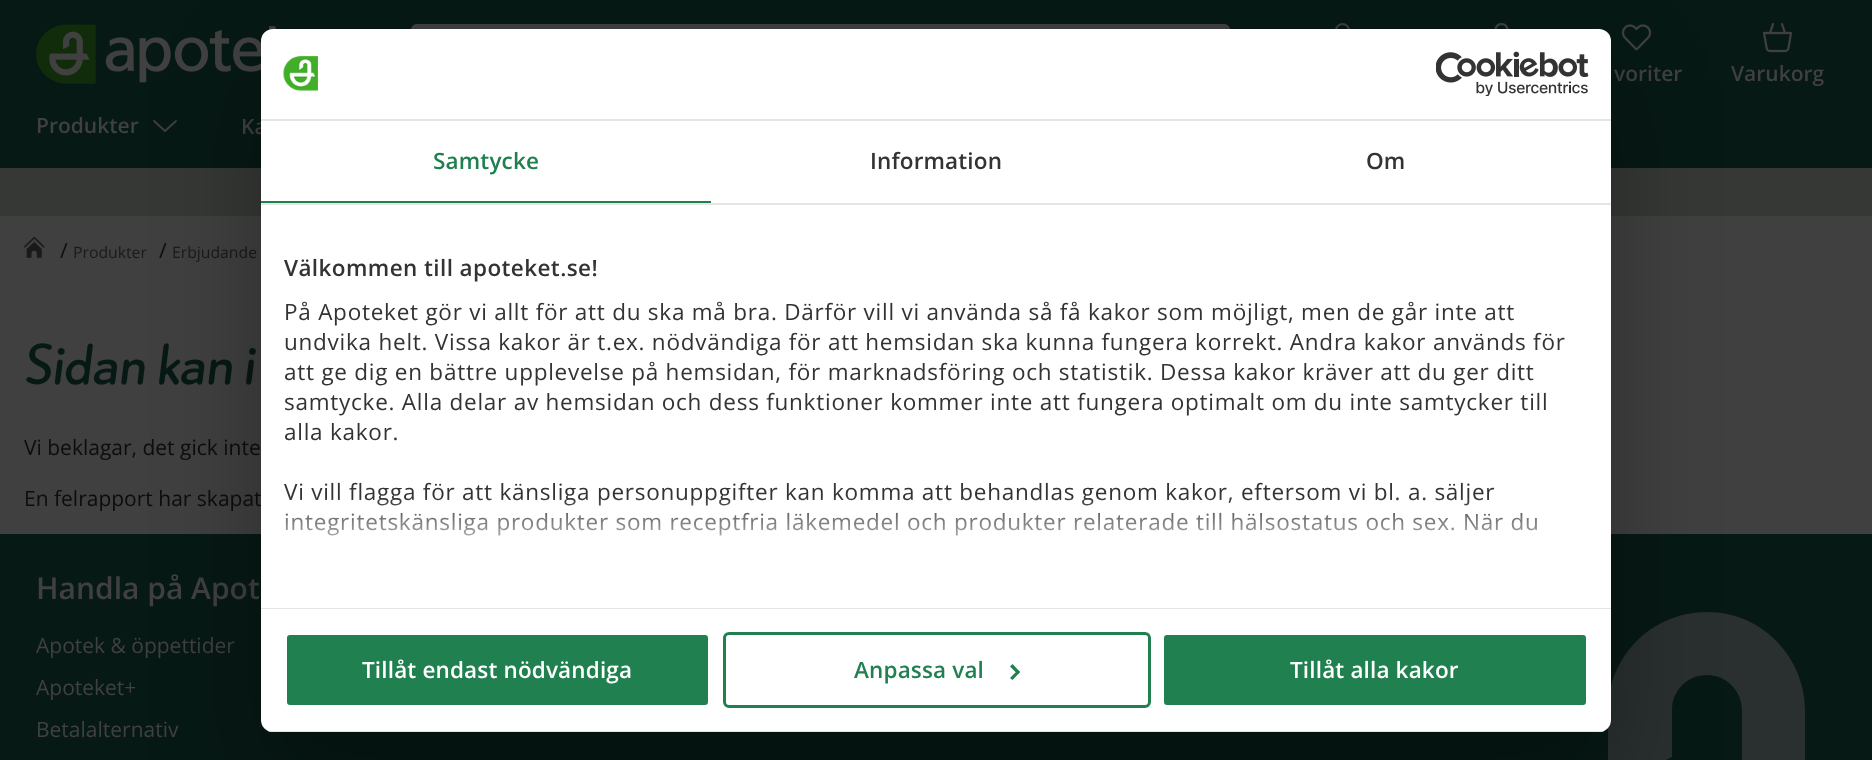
<svg xmlns="http://www.w3.org/2000/svg" width="1872" height="760">
<defs>
<linearGradient id="g1" gradientUnits="userSpaceOnUse" x1="926" y1="608" x2="926" y2="496"><stop offset="0" stop-color="#fff"/><stop offset="0.5" stop-color="#fff" stop-opacity="0.8"/><stop offset="1" stop-color="#fff" stop-opacity="0"/></linearGradient>
<clipPath id="clip1"><rect x="261" y="29" width="1350" height="703" rx="12"/></clipPath>
</defs>
<rect width="100%" height="100%" fill="#404040"/>
<rect width="1872" height="168" fill="#071915"/>
<image x="36" y="24" width="240" height="60" href="media/1.png"/>
<path d="M417 24h741v60h-741c-3.5 0-6-2.5-6-6v-48c0-3.5 2.5-6 6-6z" fill="#404040"/>
<path d="M1158 24h66c3.5 0 6 2.5 6 6v48c0 3.5-2.5 6-6 6h-66z" fill="#404040"/>
<rect x="1336" y="24" width="13" height="27" rx="6.5" fill="none" stroke="#404040" stroke-width="2"/>
<image x="1494" y="22" width="15" height="7" href="media/2.png"/>
<image x="1621" y="24" width="31" height="27" href="media/3.png"/>
<text x="1614" y="81" style="font-family:Open Sans;font-size:21px;font-weight:600;fill:#404040">voriter</text>
<image x="1762" y="22" width="31" height="31" href="media/4.png"/>
<text x="1731" y="81" style="font-family:Open Sans;font-size:21px;font-weight:600;fill:#404040">Varukorg</text>
<text x="36" y="133" style="font-family:Open Sans;font-size:21px;font-weight:600;fill:#404040">Produkter</text>
<path d="M154 121l11 10l11-10" fill="none" stroke="#404040" stroke-width="1.9" stroke-linecap="round" stroke-linejoin="round"/>
<text x="241" y="134" style="font-family:Open Sans;font-size:21px;font-weight:600;fill:#404040">Ka</text>
<rect y="168" width="1872" height="48" fill="#353834"/>
<image x="24" y="236" width="21" height="22" href="media/5.png"/>
<text x="60" y="258" style="font-family:Open Sans;font-size:21px;fill:#0d0d0d">/</text>
<text x="73" y="258" style="font-family:Open Sans;font-size:15.75px;fill:#1a1a1a">Produkter</text>
<text x="159" y="258" style="font-family:Open Sans;font-size:21px;fill:#0d0d0d">/</text>
<text x="172" y="258" style="font-family:Open Sans;font-size:15.75px;fill:#1a1a1a">Erbjudande</text>
<text x="24" y="384" style="font-family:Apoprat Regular;font-size:57px;fill:#071915">Sidan kan i</text>
<text x="24" y="455" style="font-family:Open Sans;font-size:21px;fill:#0d0d0d">Vi beklagar, det gick inte</text>
<text x="24" y="506" style="font-family:Open Sans;font-size:21px;fill:#0d0d0d">En felrapport har skapat</text>
<rect y="534" width="1872" height="226" fill="#071915"/>
<text x="36" y="599" style="font-family:Open Sans;font-size:30px;font-weight:600;fill:#404040">Handla på Apot</text>
<text x="36" y="653" style="font-family:Open Sans;font-size:21px;fill:#404040">Apotek &amp; öppettider</text>
<text x="36" y="695" style="font-family:Open Sans;font-size:21px;fill:#404040">Apoteket+</text>
<text x="36" y="737" style="font-family:Open Sans;font-size:21px;fill:#404040">Betalalternativ</text>
<path d="M1840 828h-35v-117c0-55-44-99-98-99c-55 0-99 44-99 99v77l64-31v-47c0-19 15-35 35-35c19 0 35 16 35 35v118h-260c-5 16-8 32-8 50c0 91 74 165 166 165c87 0 158-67 165-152h67zm-200 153c-52 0-95-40-101-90h202c-6 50-49 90-101 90z" fill="#29302f"/>
<rect x="261" y="77" width="1350" height="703" rx="12" fill="#0000004d" filter="blur(51px)"/>
<rect x="261" y="29" width="1350" height="703" rx="12" fill="#fff"/>
<rect x="261" y="119" width="1350" height="2" fill="#e5e5e5"/>
<image x="283" y="56" width="35" height="35" href="media/6.png"/>
<image x="1436" y="51" width="153" height="45" href="media/7.png"/>
<rect x="261" y="203" width="1350" height="2" fill="#e5e5e5"/>
<rect x="261" y="201" width="450" height="2" fill="#208050"/>
<text x="433" y="169" style="font-family:Open Sans;font-size:22.5px;font-weight:600;letter-spacing:0.15px;fill:#208050">Samtycke</text>
<text x="870" y="169" style="font-family:Open Sans;font-size:22.5px;font-weight:600;letter-spacing:0.15px;fill:#333">Information</text>
<text x="1366" y="169" style="font-family:Open Sans;font-size:22.5px;font-weight:600;letter-spacing:0.15px;fill:#333">Om</text>
<rect x="261" y="608" width="1350" height="1" fill="#e5e5e5"/>
<text x="284" y="276" style="font-family:Open Sans;font-size:22.5px;font-weight:600;letter-spacing:0.4px;fill:#333">Välkommen till apoteket.se!</text>
<text x="284" y="320" style="font-family:Open Sans;font-size:22.5px;letter-spacing:0.75px;fill:#333">På Apoteket gör vi allt för att du ska må bra. Därför vill vi använda så få kakor som möjligt, men de går inte att</text>
<text x="284" y="350" style="font-family:Open Sans;font-size:22.5px;letter-spacing:0.75px;fill:#333">undvika helt. Vissa kakor är t.ex. nödvändiga för att hemsidan ska kunna fungera korrekt. Andra kakor används för</text>
<text x="284" y="380" style="font-family:Open Sans;font-size:22.5px;letter-spacing:0.75px;fill:#333">att ge dig en bättre upplevelse på hemsidan, för marknadsföring och statistik. Dessa kakor kräver att du ger ditt</text>
<text x="284" y="410" style="font-family:Open Sans;font-size:22.5px;letter-spacing:0.75px;fill:#333">samtycke. Alla delar av hemsidan och dess funktioner kommer inte att fungera optimalt om du inte samtycker till</text>
<text x="284" y="440" style="font-family:Open Sans;font-size:22.5px;letter-spacing:0.75px;fill:#333">alla kakor.</text>
<text x="284" y="500" style="font-family:Open Sans;font-size:22.5px;letter-spacing:0.75px;fill:#333">Vi vill flagga för att känsliga personuppgifter kan komma att behandlas genom kakor, eftersom vi bl. a. säljer</text>
<text x="284" y="530" style="font-family:Open Sans;font-size:22.5px;letter-spacing:0.75px;fill:#333">integritetskänsliga produkter som receptfria läkemedel och produkter relaterade till hälsostatus och sex. När du</text>
<rect x="285" y="498" width="1252" height="38" fill="url(#g1)"/>
<g clip-path="url(#clip1)">
<rect x="261" y="731" width="1350" height="1" fill="#e5e5e5"/>
</g>
<rect x="285.5" y="633.5" width="424" height="73" rx="4.5" fill="#208050" stroke="#fff" stroke-width="3"/>
<text x="362" y="678" style="font-family:Open Sans;font-size:22.5px;font-weight:600;letter-spacing:0.15px;fill:#fff">Tillåt endast nödvändiga</text>
<rect x="724.5" y="633.5" width="425" height="73" rx="4.5" fill="none" stroke="#208050" stroke-width="3"/>
<text x="854" y="678" style="font-family:Open Sans;font-size:22.5px;font-weight:600;letter-spacing:0.15px;fill:#208050">Anpassa val</text>
<path d="M1012.5 664l7.5 8l-2 2.5l-8-8z" fill="#208050"/>
<path d="M1018 670l2 2l-7.5 8l-2.5-2z" fill="#208050"/>
<rect x="1162.5" y="633.5" width="425" height="73" rx="4.5" fill="#208050" stroke="#fff" stroke-width="3"/>
<text x="1290" y="678" style="font-family:Open Sans;font-size:22.5px;font-weight:600;letter-spacing:0.15px;fill:#fff">Tillåt alla kakor</text>
</svg>
